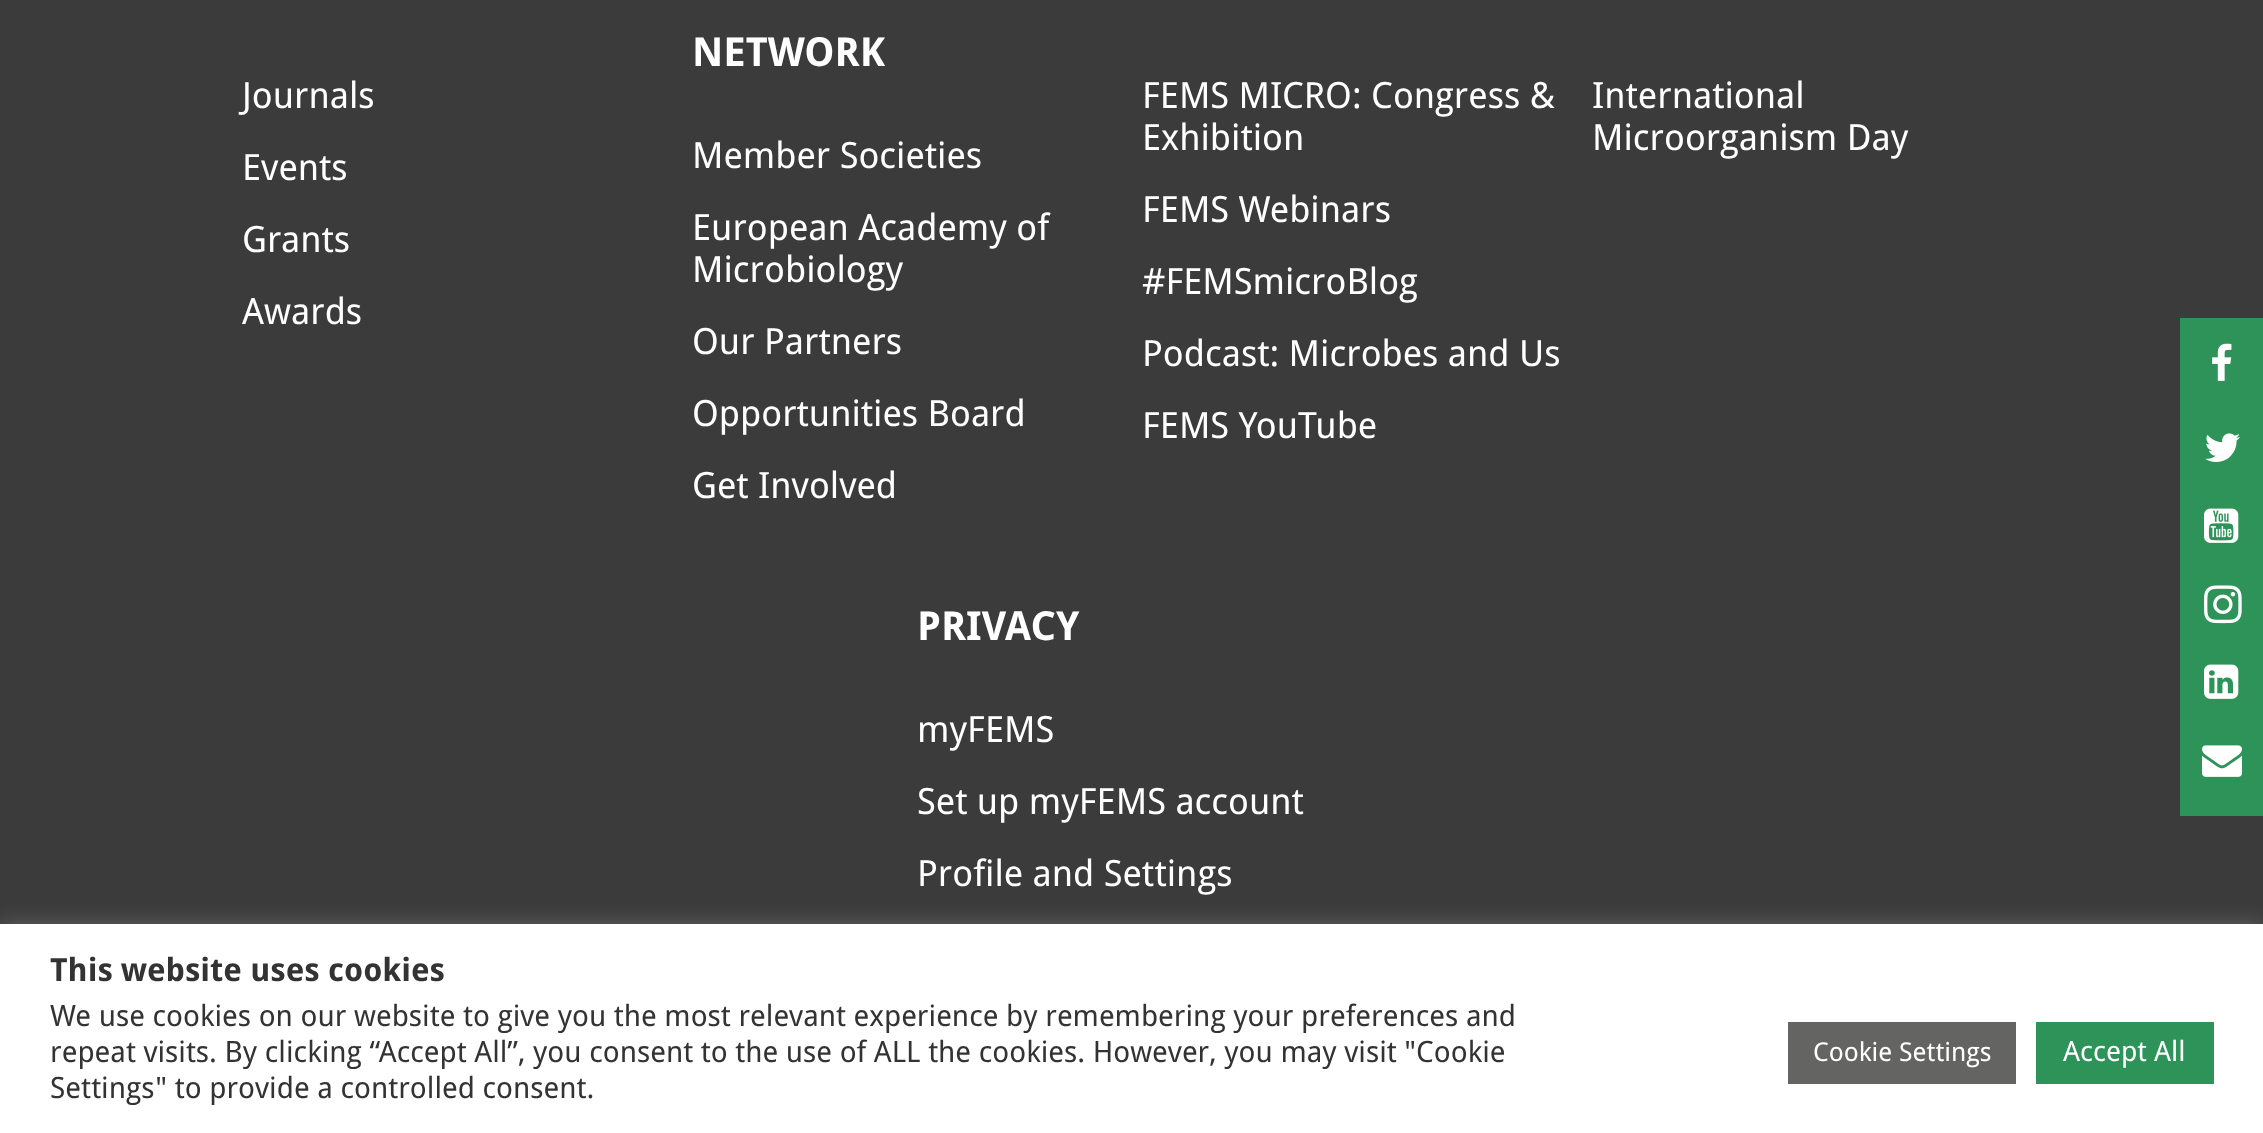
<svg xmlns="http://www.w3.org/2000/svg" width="2263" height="1133">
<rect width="100%" height="100%" fill="#3b3b3b"/>
<text x="242" y="108" style="font-family:Droid Sans;font-size:36.2px;fill:#fff">Journals</text>
<text x="242" y="180" style="font-family:Droid Sans;font-size:36.2px;fill:#fff">Events</text>
<text x="242" y="252" style="font-family:Droid Sans;font-size:36.2px;fill:#fff">Grants</text>
<text x="242" y="324" style="font-family:Droid Sans;font-size:36.2px;fill:#fff">Awards</text>
<text x="692" y="66" style="font-family:Droid Sans;font-size:40px;font-weight:bold;fill:#fff">NETWORK</text>
<text x="692" y="168" style="font-family:Droid Sans;font-size:36.2px;fill:#fff">Member Societies</text>
<text x="692" y="240" style="font-family:Droid Sans;font-size:36.2px;fill:#fff">European Academy of</text>
<text x="692" y="282" style="font-family:Droid Sans;font-size:36.2px;fill:#fff">Microbiology</text>
<text x="692" y="354" style="font-family:Droid Sans;font-size:36.2px;fill:#fff">Our Partners</text>
<text x="692" y="426" style="font-family:Droid Sans;font-size:36.2px;fill:#fff">Opportunities Board</text>
<text x="692" y="498" style="font-family:Droid Sans;font-size:36.2px;fill:#fff">Get Involved</text>
<text x="1142" y="108" style="font-family:Droid Sans;font-size:36.2px;fill:#fff">FEMS MICRO: Congress &amp;</text>
<text x="1142" y="150" style="font-family:Droid Sans;font-size:36.2px;fill:#fff">Exhibition</text>
<text x="1142" y="222" style="font-family:Droid Sans;font-size:36.2px;fill:#fff">FEMS Webinars</text>
<text x="1142" y="294" style="font-family:Droid Sans;font-size:36.2px;fill:#fff">#FEMSmicroBlog</text>
<text x="1142" y="366" style="font-family:Droid Sans;font-size:36.2px;fill:#fff">Podcast: Microbes and Us</text>
<text x="1142" y="438" style="font-family:Droid Sans;font-size:36.2px;fill:#fff">FEMS YouTube</text>
<text x="1592" y="108" style="font-family:Droid Sans;font-size:36.2px;fill:#fff">International</text>
<text x="1592" y="150" style="font-family:Droid Sans;font-size:36.2px;fill:#fff">Microorganism Day</text>
<text x="917" y="640" style="font-family:Droid Sans;font-size:40px;font-weight:bold;fill:#fff">PRIVACY</text>
<text x="917" y="742" style="font-family:Droid Sans;font-size:36.2px;fill:#fff">myFEMS</text>
<text x="917" y="814" style="font-family:Droid Sans;font-size:36.2px;fill:#fff">Set up myFEMS account</text>
<text x="917" y="886" style="font-family:Droid Sans;font-size:36.2px;fill:#fff">Profile and Settings</text>
<rect x="2180" y="318" width="83" height="498" fill="#2d9359"/>
<image x="2212" y="343" width="20" height="38" href="media/1.png"/>
<image x="2205" y="433" width="35" height="29" href="media/2.png"/>
<image x="2204" y="508" width="35" height="35" href="media/3.png"/>
<image x="2204" y="585" width="38" height="39" href="media/4.png"/>
<image x="2204" y="664" width="35" height="35" href="media/5.png"/>
<image x="2202" y="745" width="40" height="32" href="media/6.png"/>
<rect y="922" width="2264" height="210" fill="#acabab4d" filter="blur(10px)"/>
<rect y="924" width="2263" height="209" fill="#fff"/>
<text x="50" y="981" style="font-family:Droid Sans;font-size:32px;font-weight:bold;fill:#333">This website uses cookies</text>
<text x="50" y="1026" style="font-family:Droid Sans;font-size:29.35px;fill:#333">We use cookies on our website to give you the most relevant experience by remembering your preferences and</text>
<text x="50" y="1062" style="font-family:Droid Sans;font-size:29.35px;fill:#333">repeat visits. By clicking “Accept All”, you consent to the use of ALL the cookies. However, you may visit "Cookie</text>
<text x="50" y="1098" style="font-family:Droid Sans;font-size:29.35px;fill:#333">Settings" to provide a controlled consent.</text>
<rect x="1788" y="1022" width="228" height="62" fill="#646463"/>
<text x="1813" y="1061" style="font-family:Droid Sans;font-size:26px;fill:#fff">Cookie Settings</text>
<rect x="2036" y="1022" width="178" height="62" fill="#2d9359"/>
<text x="2063" y="1061" style="font-family:Droid Sans;font-size:28px;fill:#fff">Accept All</text>
</svg>
